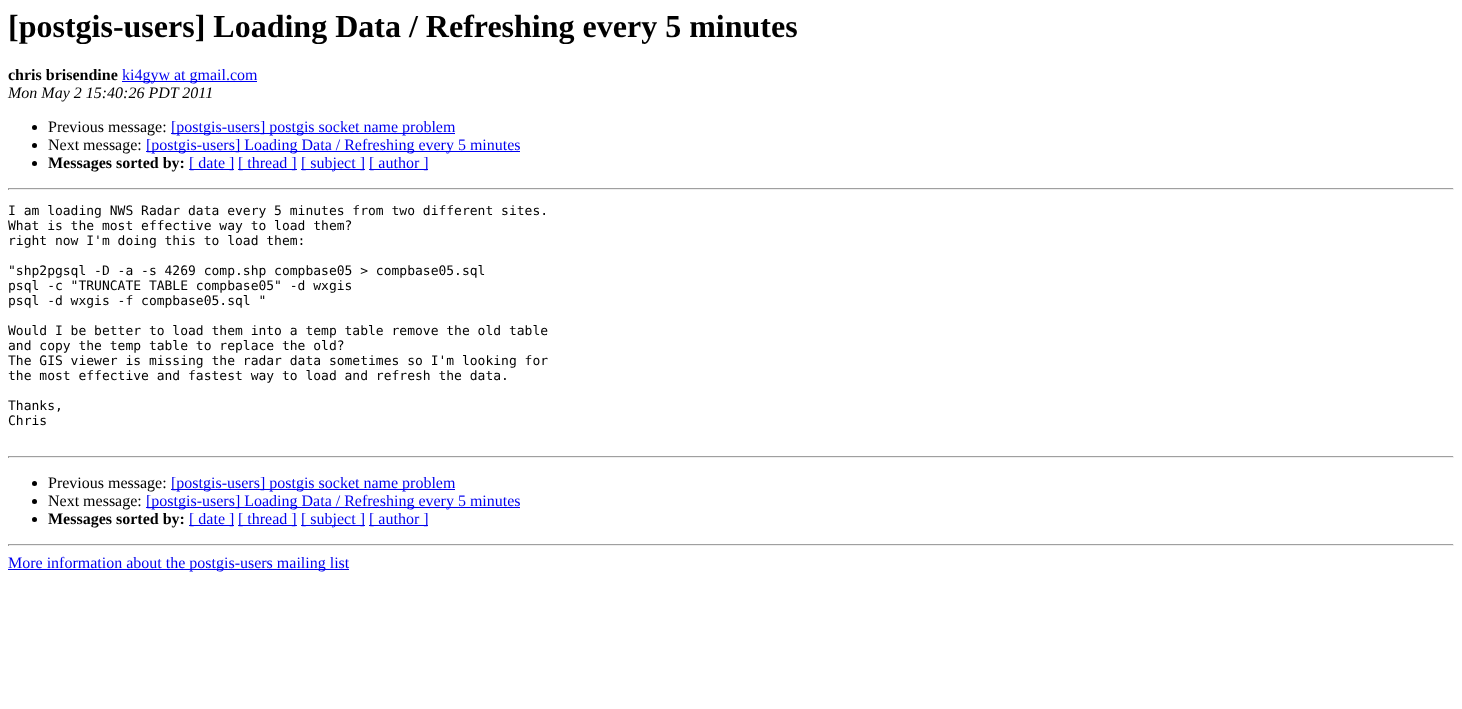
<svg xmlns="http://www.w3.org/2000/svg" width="1462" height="709">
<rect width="100%" height="100%" fill="#fff"/>
<text x="8" y="37" style="font-family:Liberation Serif;font-size:32px;font-weight:bold;fill:#000">[postgis-users] Loading Data / Refreshing every 5 minutes</text>
<text x="8" y="80" style="font-family:Liberation Serif;font-size:16px;font-weight:bold;fill:#000">chris brisendine</text>
<rect x="122" y="81" width="135" height="1" fill="#00e"/>
<text x="122" y="80" style="font-family:Liberation Serif;font-size:16px;fill:#00e">ki4gyw at gmail.com</text>
<text x="8" y="98" style="font-family:Liberation Serif;font-size:16px;font-style:italic;fill:#000">Mon May 2 15:40:26 PDT 2011</text>
<circle cx="34.5" cy="127.5" r="2.5" fill="#000"/>
<text x="48" y="132" style="font-family:Liberation Serif;font-size:16px;fill:#000">Previous message:</text>
<rect x="171" y="133" width="284" height="1" fill="#00e"/>
<text x="171" y="132" style="font-family:Liberation Serif;font-size:16px;fill:#00e">[postgis-users] postgis socket name problem</text>
<circle cx="34.5" cy="145.5" r="2.5" fill="#000"/>
<text x="48" y="150" style="font-family:Liberation Serif;font-size:16px;fill:#000">Next message:</text>
<rect x="146" y="151" width="374" height="1" fill="#00e"/>
<text x="146" y="150" style="font-family:Liberation Serif;font-size:16px;fill:#00e">[postgis-users] Loading Data / Refreshing every 5 minutes</text>
<circle cx="34.5" cy="163.5" r="2.5" fill="#000"/>
<text x="48" y="168" style="font-family:Liberation Serif;font-size:16px;font-weight:bold;fill:#000">Messages sorted by:</text>
<rect x="189" y="169" width="45" height="1" fill="#00e"/>
<text x="189" y="168" style="font-family:Liberation Serif;font-size:16px;fill:#00e">[ date ]</text>
<rect x="238" y="169" width="59" height="1" fill="#00e"/>
<text x="238" y="168" style="font-family:Liberation Serif;font-size:16px;fill:#00e">[ thread ]</text>
<rect x="301" y="169" width="64" height="1" fill="#00e"/>
<text x="301" y="168" style="font-family:Liberation Serif;font-size:16px;fill:#00e">[ subject ]</text>
<rect x="369" y="169" width="59" height="1" fill="#00e"/>
<text x="369" y="168" style="font-family:Liberation Serif;font-size:16px;fill:#00e">[ author ]</text>
<rect x="8" y="188" width="1446" height="1" fill="#9f9f9f"/>
<rect x="1453" y="188" width="1" height="2" fill="#eee"/>
<rect x="8" y="189" width="1446" height="1" fill="#eee"/>
<rect x="8" y="188" width="1" height="2" fill="#9f9f9f"/>
<text x="8" y="215" style="font-family:DejaVu Sans Mono;font-size:13px;fill:#000">I am loading NWS Radar data every 5 minutes from two different sites.</text>
<text x="8" y="230" style="font-family:DejaVu Sans Mono;font-size:13px;fill:#000">What is the most effective way to load them?</text>
<text x="8" y="245" style="font-family:DejaVu Sans Mono;font-size:13px;fill:#000">right now I'm doing this to load them:</text>
<text x="8" y="275" style="font-family:DejaVu Sans Mono;font-size:13px;fill:#000">"shp2pgsql -D -a -s 4269 comp.shp compbase05 &gt; compbase05.sql</text>
<text x="8" y="290" style="font-family:DejaVu Sans Mono;font-size:13px;fill:#000">psql -c "TRUNCATE TABLE compbase05" -d wxgis</text>
<text x="8" y="305" style="font-family:DejaVu Sans Mono;font-size:13px;fill:#000">psql -d wxgis -f compbase05.sql "</text>
<text x="8" y="335" style="font-family:DejaVu Sans Mono;font-size:13px;fill:#000">Would I be better to load them into a temp table remove the old table</text>
<text x="8" y="350" style="font-family:DejaVu Sans Mono;font-size:13px;fill:#000">and copy the temp table to replace the old?</text>
<text x="8" y="365" style="font-family:DejaVu Sans Mono;font-size:13px;fill:#000">The GIS viewer is missing the radar data sometimes so I'm looking for</text>
<text x="8" y="380" style="font-family:DejaVu Sans Mono;font-size:13px;fill:#000">the most effective and fastest way to load and refresh the data.</text>
<text x="8" y="410" style="font-family:DejaVu Sans Mono;font-size:13px;fill:#000">Thanks,</text>
<text x="8" y="425" style="font-family:DejaVu Sans Mono;font-size:13px;fill:#000">Chris</text>
<rect x="8" y="456" width="1446" height="1" fill="#9f9f9f"/>
<rect x="1453" y="456" width="1" height="2" fill="#eee"/>
<rect x="8" y="457" width="1446" height="1" fill="#eee"/>
<rect x="8" y="456" width="1" height="2" fill="#9f9f9f"/>
<circle cx="34.5" cy="483.5" r="2.5" fill="#000"/>
<text x="48" y="488" style="font-family:Liberation Serif;font-size:16px;fill:#000">Previous message:</text>
<rect x="171" y="489" width="284" height="1" fill="#00e"/>
<text x="171" y="488" style="font-family:Liberation Serif;font-size:16px;fill:#00e">[postgis-users] postgis socket name problem</text>
<circle cx="34.5" cy="501.5" r="2.5" fill="#000"/>
<text x="48" y="506" style="font-family:Liberation Serif;font-size:16px;fill:#000">Next message:</text>
<rect x="146" y="507" width="374" height="1" fill="#00e"/>
<text x="146" y="506" style="font-family:Liberation Serif;font-size:16px;fill:#00e">[postgis-users] Loading Data / Refreshing every 5 minutes</text>
<circle cx="34.5" cy="519.5" r="2.5" fill="#000"/>
<text x="48" y="524" style="font-family:Liberation Serif;font-size:16px;font-weight:bold;fill:#000">Messages sorted by:</text>
<rect x="189" y="525" width="45" height="1" fill="#00e"/>
<text x="189" y="524" style="font-family:Liberation Serif;font-size:16px;fill:#00e">[ date ]</text>
<rect x="238" y="525" width="59" height="1" fill="#00e"/>
<text x="238" y="524" style="font-family:Liberation Serif;font-size:16px;fill:#00e">[ thread ]</text>
<rect x="301" y="525" width="64" height="1" fill="#00e"/>
<text x="301" y="524" style="font-family:Liberation Serif;font-size:16px;fill:#00e">[ subject ]</text>
<rect x="369" y="525" width="59" height="1" fill="#00e"/>
<text x="369" y="524" style="font-family:Liberation Serif;font-size:16px;fill:#00e">[ author ]</text>
<rect x="8" y="544" width="1446" height="1" fill="#9f9f9f"/>
<rect x="1453" y="544" width="1" height="2" fill="#eee"/>
<rect x="8" y="545" width="1446" height="1" fill="#eee"/>
<rect x="8" y="544" width="1" height="2" fill="#9f9f9f"/>
<rect x="8" y="569" width="341" height="1" fill="#00e"/>
<text x="8" y="568" style="font-family:Liberation Serif;font-size:16px;fill:#00e">More information about the postgis-users mailing list</text>
</svg>
